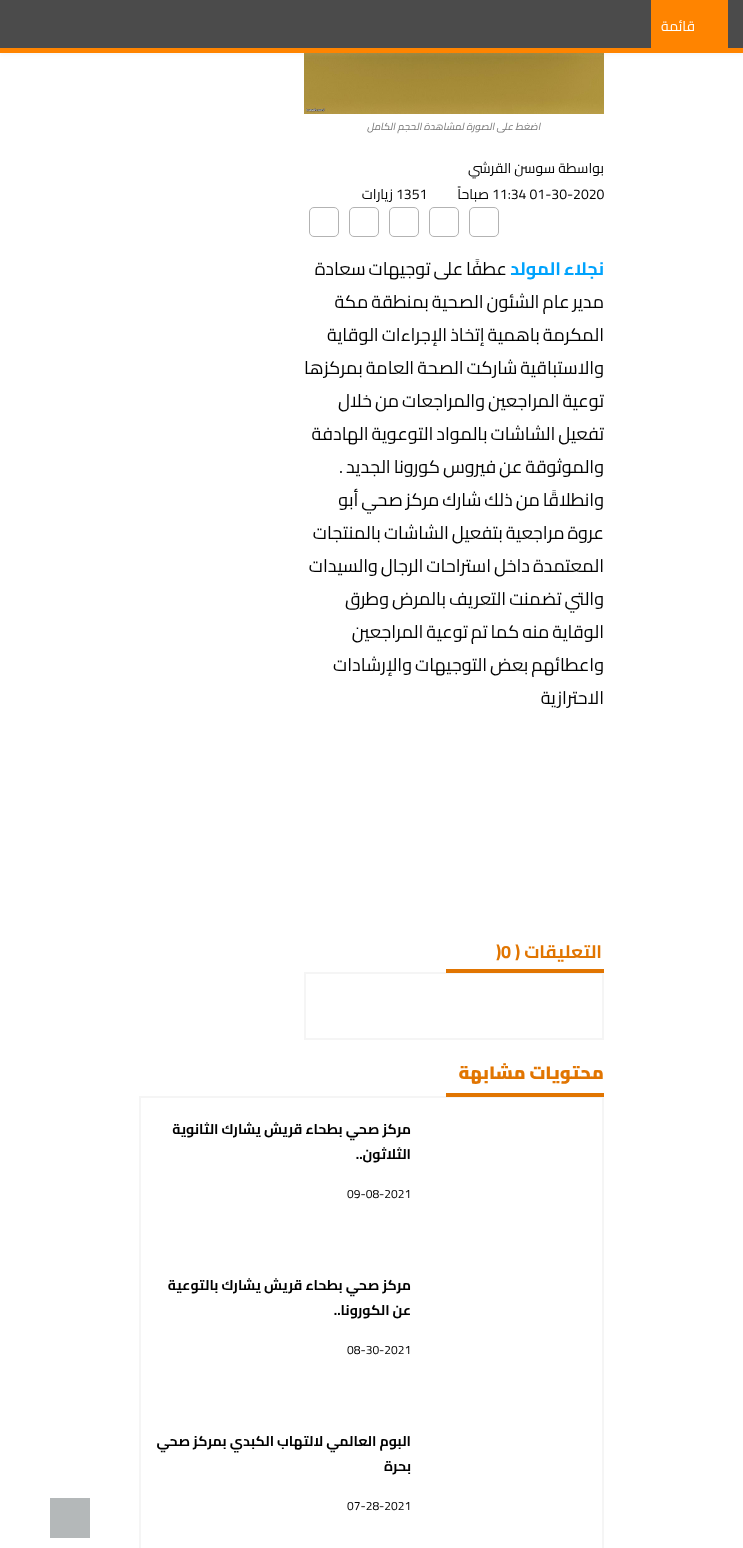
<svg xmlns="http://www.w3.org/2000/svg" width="743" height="1548">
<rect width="100%" height="100%" fill="#fff"/>
<image x="304" y="53" width="300" height="61" href="media/1.png"/>
<rect y="1" width="743" height="53" fill="#bebebe33" filter="blur(2.5px)"/>
<rect width="743" height="48" fill="#4b4b4b"/>
<rect y="48" width="743" height="5" fill="#ff8400"/>
<rect x="651" width="77" height="48" fill="#ff8400"/>
<text x="695" y="31" style="font-family:Cairo;font-size:14px;direction:rtl;fill:#fff">قائمة</text>
<text x="541" y="130" style="font-family:Cairo;font-size:10px;font-style:italic;direction:rtl;fill:#757575">اضغط على الصورة لمشاهدة الحجم الكامل</text>
<text x="604" y="173" style="font-family:Cairo;font-size:14px;direction:rtl;fill:#000">بواسطة سوسن القرشي</text>
<text x="492" y="199" style="font-family:Cairo;font-size:14px;fill:#000">11:34 01-30-2020</text>
<text x="489" y="199" style="font-family:Cairo;font-size:14px;direction:rtl;fill:#000">صباحاً</text>
<text x="396" y="199" style="font-family:Cairo;font-size:14px;fill:#000">1351</text>
<text x="393" y="199" style="font-family:Cairo;font-size:14px;direction:rtl;fill:#000">زيارات</text>
<rect x="469.5" y="207.5" width="29" height="29" rx="4.5" fill="none" stroke="#b3b3b3"/>
<rect x="429.5" y="207.5" width="29" height="29" rx="4.5" fill="none" stroke="#b3b3b3"/>
<rect x="389.5" y="207.5" width="29" height="29" rx="4.5" fill="none" stroke="#b3b3b3"/>
<rect x="349.5" y="207.5" width="29" height="29" rx="4.5" fill="none" stroke="#b3b3b3"/>
<rect x="309.5" y="207.5" width="29" height="29" rx="4.5" fill="none" stroke="#b3b3b3"/>
<text x="604" y="275" word-spacing="-1" style="font-family:Cairo;font-size:18px;font-weight:bold;direction:rtl;fill:#00a3fd">نجلاء المولد</text>
<text x="507" y="275" word-spacing="-1" style="font-family:Cairo;font-size:18px;direction:rtl;fill:#000">عطفًا على توجيهات سعادة</text>
<text x="604" y="308" word-spacing="-1" style="font-family:Cairo;font-size:18px;direction:rtl;fill:#000">مدير عام الشئون الصحية بمنطقة مكة</text>
<text x="604" y="341" word-spacing="-1" style="font-family:Cairo;font-size:18px;direction:rtl;fill:#000">المكرمة باهمية إتخاذ الإجراءات الوقاية</text>
<text x="604" y="374" word-spacing="-1" style="font-family:Cairo;font-size:18px;direction:rtl;fill:#000">والاستباقية شاركت الصحة العامة بمركزها</text>
<text x="604" y="407" word-spacing="-1" style="font-family:Cairo;font-size:18px;direction:rtl;fill:#000">توعية المراجعين والمراجعات من خلال</text>
<text x="604" y="440" word-spacing="-1" style="font-family:Cairo;font-size:18px;direction:rtl;fill:#000">تفعيل الشاشات بالمواد التوعوية الهادفة</text>
<text x="604" y="473" word-spacing="-1" style="font-family:Cairo;font-size:18px;direction:rtl;fill:#000">والموثوقة عن فيروس كورونا الجديد .</text>
<text x="604" y="506" word-spacing="-1" style="font-family:Cairo;font-size:18px;direction:rtl;fill:#000">وانطلاقًا من ذلك شارك مركز صحي أبو</text>
<text x="604" y="539" word-spacing="-1" style="font-family:Cairo;font-size:18px;direction:rtl;fill:#000">عروة مراجعية بتفعيل الشاشات بالمنتجات</text>
<text x="604" y="572" word-spacing="-1" style="font-family:Cairo;font-size:18px;direction:rtl;fill:#000">المعتمدة داخل استراحات الرجال والسيدات</text>
<text x="604" y="605" word-spacing="-1" style="font-family:Cairo;font-size:18px;direction:rtl;fill:#000">والتي تضمنت التعريف بالمرض وطرق</text>
<text x="604" y="638" word-spacing="-1" style="font-family:Cairo;font-size:18px;direction:rtl;fill:#000">الوقاية منه كما تم توعية المراجعين</text>
<text x="604" y="671" word-spacing="-1" style="font-family:Cairo;font-size:18px;direction:rtl;fill:#000">واعطائهم بعض التوجيهات والإرشادات</text>
<text x="604" y="704" style="font-family:Cairo;font-size:18px;direction:rtl;fill:#000">الاحترازية</text>
<text x="602" y="958" style="font-family:Cairo;font-size:18px;font-weight:bold;direction:rtl;fill:#e17501">التعليقات (</text>
<text x="501" y="958" style="font-family:Cairo;font-size:18px;font-weight:bold;fill:#e17501">0</text>
<text x="496" y="958" style="font-family:Cairo;font-size:18px;font-weight:bold;fill:#e17501">)</text>
<rect x="305" y="973" width="298" height="66" fill="none" stroke="#f5f5f5" stroke-width="2"/>
<rect x="446" y="969" width="158" height="4" fill="#e17501"/>
<text x="604" y="1079" style="font-family:Cairo;font-size:18px;font-weight:900;direction:rtl;fill:#e17501">محتويات مشابهة</text>
<rect x="140" y="1097" width="463" height="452" fill="none" stroke="#f5f5f5" stroke-width="2"/>
<rect x="446" y="1093" width="158" height="4" fill="#e17501"/>
<text x="411" y="1134" style="font-family:Cairo;font-size:14px;font-weight:bold;direction:rtl;fill:#000">مركز صحي بطحاء قريش يشارك الثانوية</text>
<text x="411" y="1159" style="font-family:Cairo;font-size:14px;font-weight:bold;direction:rtl;fill:#000">الثلاثون..</text>
<text x="347" y="1198" style="font-family:Cairo;font-size:12px;fill:#000">09-08-2021</text>
<text x="411" y="1290" style="font-family:Cairo;font-size:14px;font-weight:bold;direction:rtl;fill:#000">مركز صحي بطحاء قريش يشارك بالتوعية</text>
<text x="411" y="1315" style="font-family:Cairo;font-size:14px;font-weight:bold;direction:rtl;fill:#000">عن الكورونا..</text>
<text x="347" y="1354" style="font-family:Cairo;font-size:12px;fill:#000">08-30-2021</text>
<text x="411" y="1446" style="font-family:Cairo;font-size:14px;font-weight:bold;direction:rtl;fill:#000">البوم العالمي لالتهاب الكبدي بمركز صحي</text>
<text x="411" y="1471" style="font-family:Cairo;font-size:14px;font-weight:bold;direction:rtl;fill:#000">بحرة</text>
<text x="347" y="1510" style="font-family:Cairo;font-size:12px;fill:#000">07-28-2021</text>
<rect x="50" y="1498" width="40" height="40" fill="#b4b8b9"/>
</svg>
